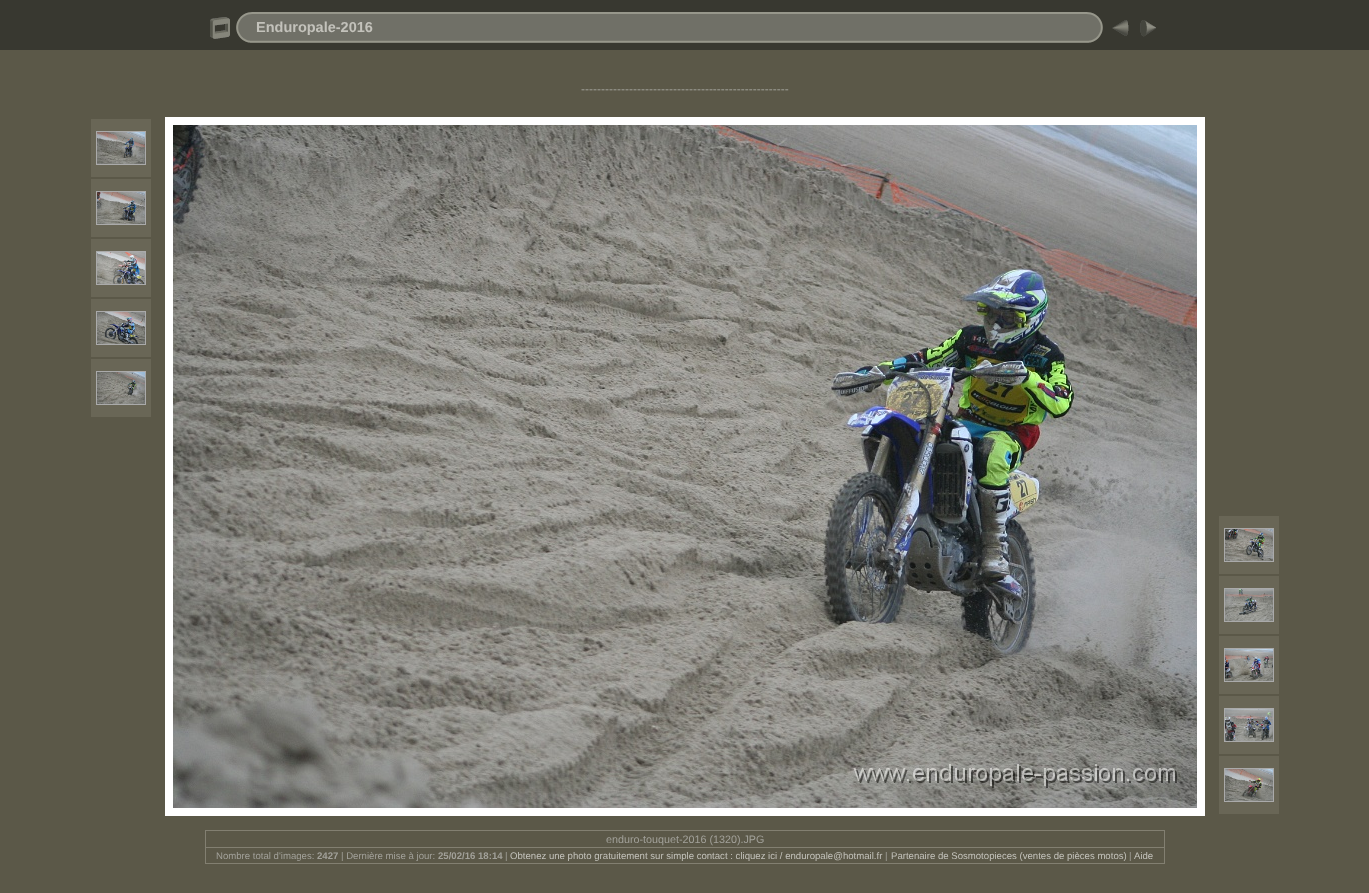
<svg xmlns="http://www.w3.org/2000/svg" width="1369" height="893">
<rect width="100%" height="100%" fill="#5b5848"/>
<rect width="1369" height="50" fill="#383830"/>
<image x="210" y="17" width="20" height="22" href="media/1.png"/>
<image x="236" y="12" width="20" height="31" href="media/2.png"/>
<image x="256" y="12" width="827" height="31" href="media/3.png"/>
<text x="256" y="32" style="font-family:Liberation Sans;font-size:14.5px;font-weight:bold;fill:#c3c2bb">Enduropale-2016</text>
<image x="1083" y="12" width="20" height="31" href="media/4.png"/>
<image x="1112" y="20" width="17" height="16" href="media/5.png"/>
<image x="1140" y="20" width="16" height="17" href="media/6.png"/>
<text x="581" y="93" style="font-family:Liberation Sans;font-size:12px;fill:#a2a19a">----------------------------------------------------</text>
<rect x="91" y="119" width="60" height="58" fill="#696656"/>
<rect x="96.5" y="131.5" width="49" height="33" fill="none" stroke="#aaa"/>
<image x="97" y="132" width="48" height="32" href="media/7.png"/>
<rect x="91" y="179" width="60" height="58" fill="#696656"/>
<rect x="96.5" y="191.5" width="49" height="33" fill="none" stroke="#aaa"/>
<image x="97" y="192" width="48" height="32" href="media/8.png"/>
<rect x="91" y="239" width="60" height="58" fill="#696656"/>
<rect x="96.5" y="251.5" width="49" height="33" fill="none" stroke="#aaa"/>
<image x="97" y="252" width="48" height="32" href="media/9.png"/>
<rect x="91" y="299" width="60" height="58" fill="#696656"/>
<rect x="96.5" y="311.5" width="49" height="33" fill="none" stroke="#aaa"/>
<image x="97" y="312" width="48" height="32" href="media/10.png"/>
<rect x="91" y="359" width="60" height="58" fill="#696656"/>
<rect x="96.5" y="371.5" width="49" height="33" fill="none" stroke="#aaa"/>
<image x="97" y="372" width="48" height="32" href="media/11.png"/>
<rect x="169" y="121" width="1032" height="691" fill="none" stroke="#fff" stroke-width="8"/>
<image x="173" y="125" width="1024" height="683" href="media/12.png"/>
<rect x="1219" y="516" width="60" height="58" fill="#696656"/>
<rect x="1224.5" y="528.5" width="49" height="33" fill="none" stroke="#aaa"/>
<image x="1225" y="529" width="48" height="32" href="media/13.png"/>
<rect x="1219" y="576" width="60" height="58" fill="#696656"/>
<rect x="1224.5" y="588.5" width="49" height="33" fill="none" stroke="#aaa"/>
<image x="1225" y="589" width="48" height="32" href="media/14.png"/>
<rect x="1219" y="636" width="60" height="58" fill="#696656"/>
<rect x="1224.5" y="648.5" width="49" height="33" fill="none" stroke="#aaa"/>
<image x="1225" y="649" width="48" height="32" href="media/15.png"/>
<rect x="1219" y="696" width="60" height="58" fill="#696656"/>
<rect x="1224.5" y="708.5" width="49" height="33" fill="none" stroke="#aaa"/>
<image x="1225" y="709" width="48" height="32" href="media/16.png"/>
<rect x="1219" y="756" width="60" height="58" fill="#696656"/>
<rect x="1224.5" y="768.5" width="49" height="33" fill="none" stroke="#aaa"/>
<image x="1225" y="769" width="48" height="32" href="media/17.png"/>
<rect x="205" y="830" width="960" height="1" fill="#827f71"/>
<rect x="1164" y="830" width="1" height="34" fill="#827f71"/>
<rect x="205" y="863" width="960" height="1" fill="#827f71"/>
<rect x="205" y="830" width="1" height="34" fill="#827f71"/>
<text x="606" y="843" style="font-family:Liberation Sans;font-size:10.75px;fill:#a2a19a">enduro-touquet-2016 (1320).JPG</text>
<rect x="205" y="847" width="960" height="1" fill="#827f71"/>
<text x="216" y="859" style="font-family:Liberation Sans;font-size:9.6px;fill:#a2a19a">Nombre total d'images:</text>
<text x="317" y="859" style="font-family:Liberation Sans;font-size:9.6px;font-weight:bold;fill:#a2a19a">2427</text>
<text x="341" y="859" style="font-family:Liberation Sans;font-size:9.6px;fill:#a2a19a">| Dernière mise à jour:</text>
<text x="438" y="859" style="font-family:Liberation Sans;font-size:9.6px;font-weight:bold;fill:#a2a19a">25/02/16 18:14</text>
<text x="505" y="859" style="font-family:Liberation Sans;font-size:9.6px;fill:#a2a19a">|</text>
<text x="510" y="859" style="font-family:Liberation Sans;font-size:9.6px;fill:#c3c2bb">Obtenez une photo gratuitement sur simple contact : cliquez ici / enduropale@hotmail.fr</text>
<text x="885" y="859" style="font-family:Liberation Sans;font-size:9.6px;fill:#a2a19a">|</text>
<text x="891" y="859" style="font-family:Liberation Sans;font-size:9.6px;fill:#c3c2bb">Partenaire de Sosmotopieces (ventes de pièces motos)</text>
<text x="1129" y="859" style="font-family:Liberation Sans;font-size:9.6px;fill:#a2a19a">|</text>
<text x="1134" y="859" style="font-family:Liberation Sans;font-size:9.6px;fill:#c3c2bb">Aide</text>
</svg>
